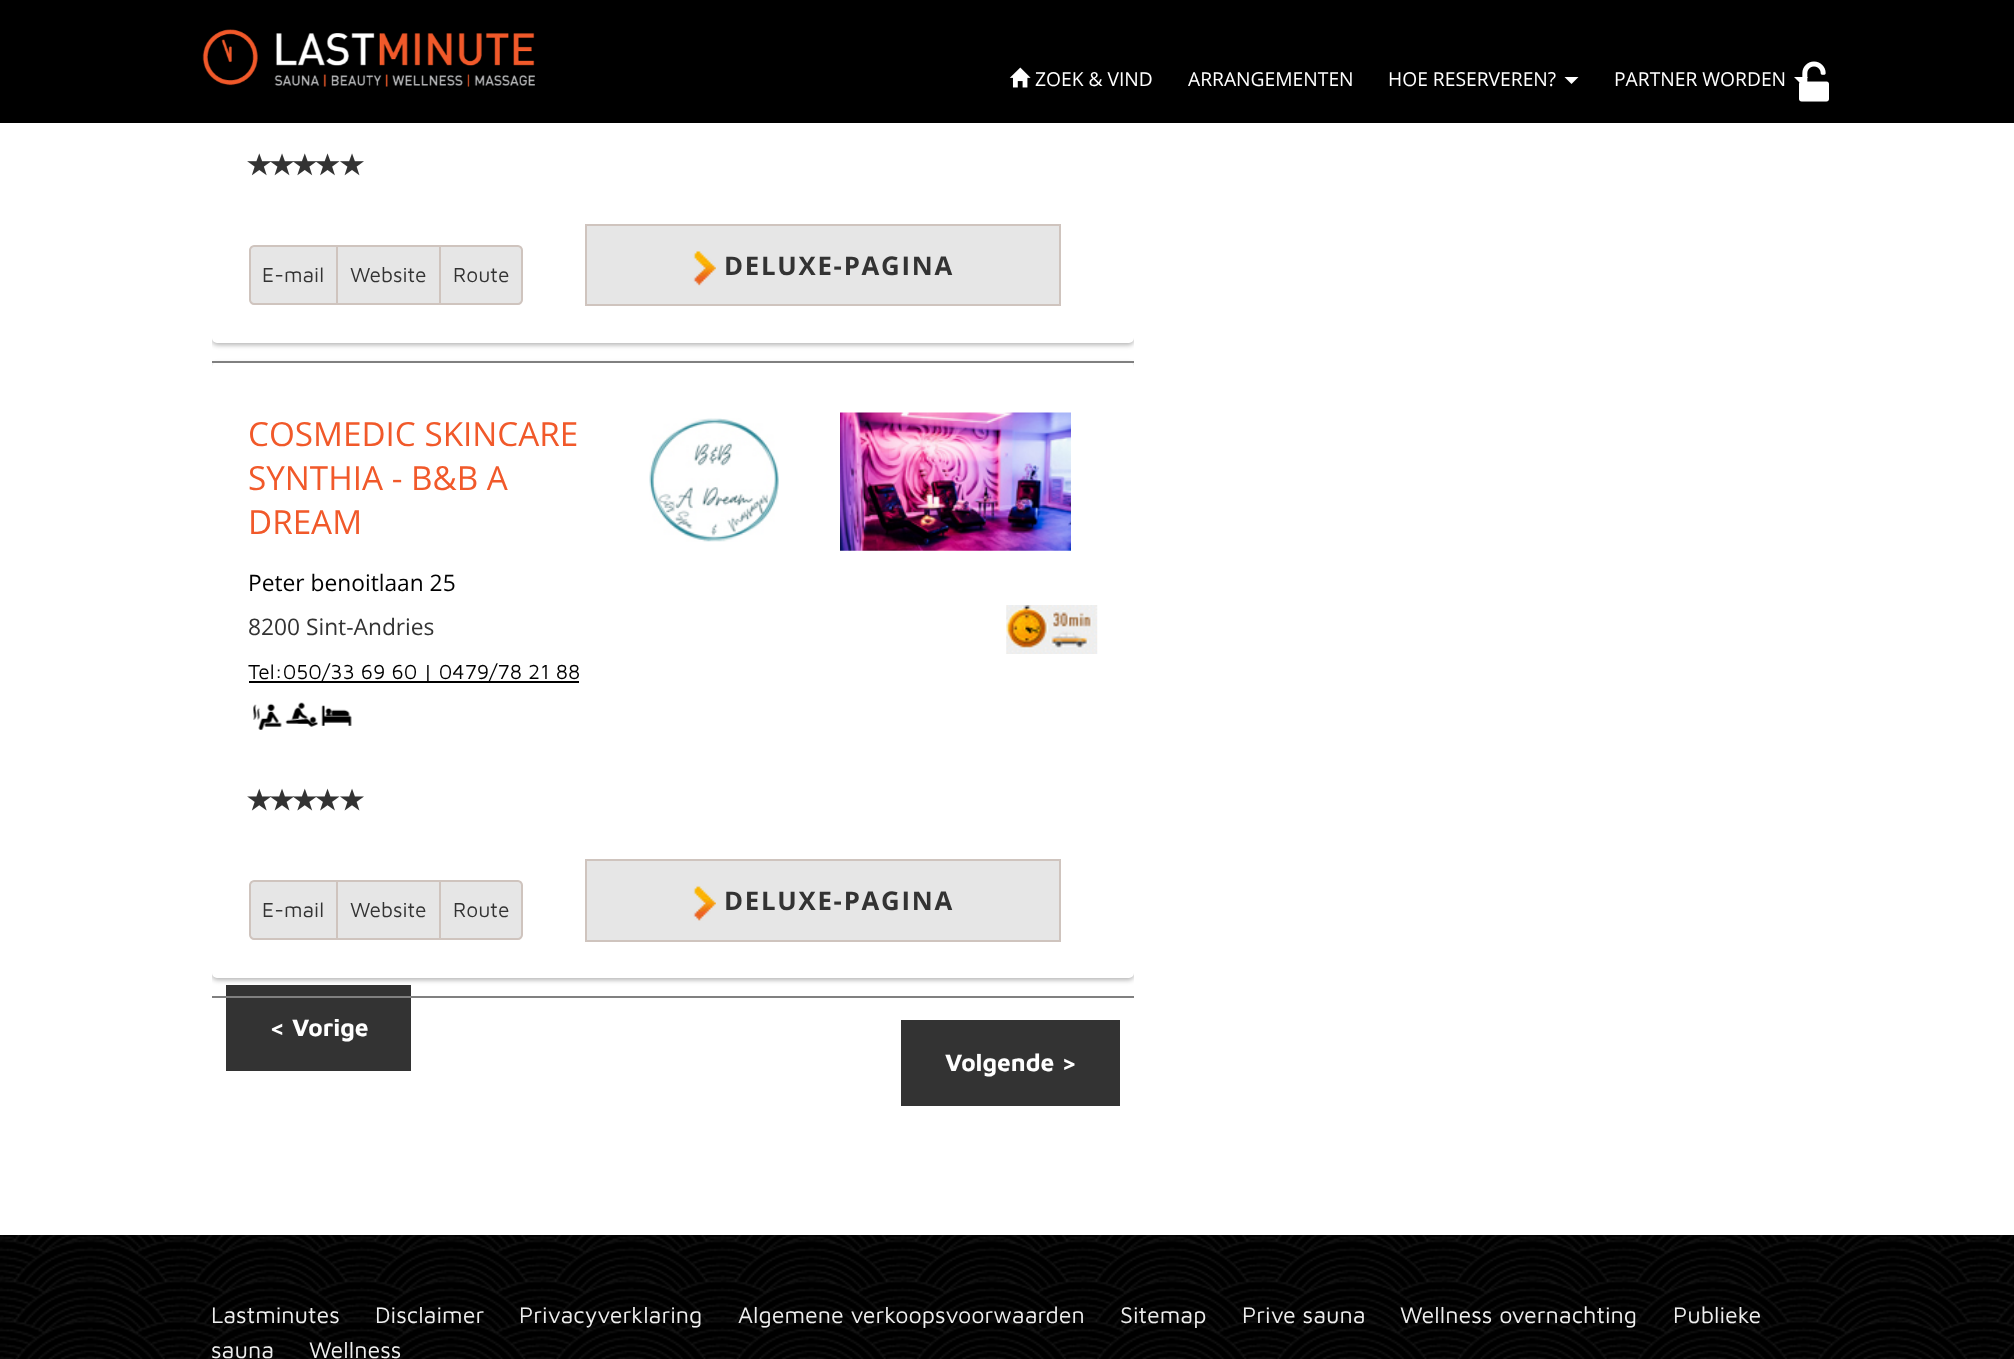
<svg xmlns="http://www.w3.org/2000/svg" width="2014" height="1359">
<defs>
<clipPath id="clip1"><rect x="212" y="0" width="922" height="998"/></clipPath>
</defs>
<rect width="100%" height="100%" fill="#fff"/>
<g clip-path="url(#clip1)">
<rect x="212" y="-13" width="922" height="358" rx="5" fill="#0000004d" filter="blur(2.5px)"/>
</g>
<rect x="213" y="-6" width="920" height="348" rx="4" fill="#fff" stroke="#fff" stroke-width="2"/>
<rect width="2014" height="123" fill="#000"/>
<image x="202" y="29" width="333" height="58" href="media/1.png"/>
<image x="1009" y="67" width="22" height="21" href="media/2.png"/>
<text x="1035" y="86" style="font-family:Open Sans;font-size:19.25px;fill:#fff">ZOEK &amp; VIND</text>
<text x="1188" y="86" style="font-family:Open Sans;font-size:19.25px;fill:#fff">ARRANGEMENTEN</text>
<text x="1388" y="86" style="font-family:Open Sans;font-size:19.25px;fill:#fff">HOE RESERVEREN?</text>
<path d="M1564.5 77h14l-7 7z" fill="#fff"/>
<text x="1614" y="86" style="font-family:Open Sans;font-size:19.25px;fill:#fff">PARTNER WORDEN</text>
<image x="1799" y="61" width="30" height="41" href="media/3.png"/>
<path d="M1794 77h14l-7 7z" fill="#fff"/>
<rect x="226" y="985" width="185" height="86" fill="#333"/>
<g clip-path="url(#clip1)">
<rect x="212" y="364" width="922" height="616" rx="5" fill="#0000004d" filter="blur(2.5px)"/>
</g>
<rect x="213" y="363" width="920" height="614" rx="4" fill="#fff" stroke="#fff" stroke-width="2"/>
<rect x="212" y="361" width="922" height="2" fill="#808080"/>
<image x="247" y="153" width="25" height="23" href="media/4.png"/>
<image x="270" y="153" width="24" height="23" href="media/5.png"/>
<image x="293" y="153" width="24" height="23" href="media/6.png"/>
<image x="315" y="153" width="25" height="23" href="media/7.png"/>
<image x="340" y="153" width="24" height="23" href="media/8.png"/>
<path d="M254 246h83v58h-83c-2 0-4-2-4-4v-50c0-2 2-4 4-4z" fill="#e6e6e6" stroke="#cfc4be" stroke-width="2"/>
<text x="262" y="282" style="font-family:Maven Pro;font-size:21px;fill:#333">E-mail</text>
<rect x="337" y="246" width="103" height="58" fill="#e6e6e6" stroke="#cfc4be" stroke-width="2"/>
<text x="350" y="282" style="font-family:Maven Pro;font-size:21px;fill:#333">Website</text>
<path d="M440 246h78c2 0 4 2 4 4v50c0 2-2 4-4 4h-78z" fill="#e6e6e6" stroke="#cfc4be" stroke-width="2"/>
<text x="453" y="282" style="font-family:Maven Pro;font-size:21px;fill:#333">Route</text>
<rect x="586" y="225" width="474" height="80" fill="#e6e6e6" stroke="#cfc4be" stroke-width="2"/>
<image x="693" y="250" width="23" height="36" href="media/9.png"/>
<text x="724" y="275" style="font-family:Open Sans;font-size:25.75px;font-weight:bold;letter-spacing:1.75px;fill:#333">DELUXE-PAGINA</text>
<rect x="212" y="996" width="922" height="2" fill="#808080"/>
<text x="248" y="446" style="font-family:Open Sans;font-size:33.25px;fill:#f1592a">COSMEDIC SKINCARE</text>
<text x="248" y="490" style="font-family:Open Sans;font-size:33.25px;fill:#f1592a">SYNTHIA - B&amp;B A</text>
<text x="248" y="534" style="font-family:Open Sans;font-size:33.25px;fill:#f1592a">DREAM</text>
<image x="649" y="418" width="130" height="124" href="media/10.png"/>
<image x="840" y="412" width="231" height="139" href="media/11.png"/>
<text x="248" y="591" style="font-family:Open Sans;font-size:22.75px;fill:#000">Peter benoitlaan 25</text>
<text x="248" y="635" style="font-family:Open Sans;font-size:22.75px;fill:#333">8200 Sint-Andries</text>
<image x="1006" y="605" width="92" height="49" href="media/12.png"/>
<rect x="249" y="681" width="330" height="2" fill="#000"/>
<text x="248" y="679" style="font-family:Maven Pro;font-size:21px;fill:#000">Tel:050/33 69 60 | 0479/78 21 88</text>
<image x="253" y="703" width="29" height="27" href="media/13.png"/>
<image x="285" y="702" width="33" height="25" href="media/14.png"/>
<image x="321" y="705" width="31" height="21" href="media/15.png"/>
<image x="247" y="788" width="25" height="23" href="media/16.png"/>
<image x="270" y="788" width="24" height="23" href="media/17.png"/>
<image x="292" y="788" width="25" height="23" href="media/18.png"/>
<image x="315" y="788" width="25" height="23" href="media/19.png"/>
<image x="340" y="788" width="24" height="23" href="media/20.png"/>
<path d="M254 881h83v58h-83c-2 0-4-2-4-4v-50c0-2 2-4 4-4z" fill="#e6e6e6" stroke="#cfc4be" stroke-width="2"/>
<text x="262" y="917" style="font-family:Maven Pro;font-size:21px;fill:#333">E-mail</text>
<rect x="337" y="881" width="103" height="58" fill="#e6e6e6" stroke="#cfc4be" stroke-width="2"/>
<text x="350" y="917" style="font-family:Maven Pro;font-size:21px;fill:#333">Website</text>
<path d="M440 881h78c2 0 4 2 4 4v50c0 2-2 4-4 4h-78z" fill="#e6e6e6" stroke="#cfc4be" stroke-width="2"/>
<text x="453" y="917" style="font-family:Maven Pro;font-size:21px;fill:#333">Route</text>
<rect x="586" y="860" width="474" height="81" fill="#e6e6e6" stroke="#cfc4be" stroke-width="2"/>
<image x="693" y="885" width="23" height="36" href="media/21.png"/>
<text x="724" y="910" style="font-family:Open Sans;font-size:25.75px;font-weight:bold;letter-spacing:1.75px;fill:#333">DELUXE-PAGINA</text>
<text x="269" y="1036" style="font-family:Maven Pro;font-size:24.5px;font-weight:bold;fill:#fff">&lt; Vorige</text>
<rect x="901" y="1020" width="219" height="86" fill="#333"/>
<text x="945" y="1071" style="font-family:Maven Pro;font-size:24.5px;font-weight:bold;fill:#fff">Volgende &gt;</text>
<image x="0" y="1235" width="2014" height="124" href="media/22.png"/>
<text x="211" y="1323" style="font-family:Maven Pro;font-size:23.3px;fill:#efefef">Lastminutes</text>
<text x="375" y="1323" style="font-family:Maven Pro;font-size:23.3px;fill:#efefef">Disclaimer</text>
<text x="519" y="1323" style="font-family:Maven Pro;font-size:23.3px;fill:#efefef">Privacyverklaring</text>
<text x="738" y="1323" style="font-family:Maven Pro;font-size:23.3px;fill:#efefef">Algemene verkoopsvoorwaarden</text>
<text x="1120" y="1323" style="font-family:Maven Pro;font-size:23.3px;fill:#efefef">Sitemap</text>
<text x="1242" y="1323" style="font-family:Maven Pro;font-size:23.3px;fill:#efefef">Prive sauna</text>
<text x="1400" y="1323" style="font-family:Maven Pro;font-size:23.3px;fill:#efefef">Wellness overnachting</text>
<text x="1673" y="1323" style="font-family:Maven Pro;font-size:23.3px;fill:#efefef">Publieke</text>
<text x="211" y="1358" style="font-family:Maven Pro;font-size:23.3px;fill:#efefef">sauna</text>
<text x="309" y="1358" style="font-family:Maven Pro;font-size:23.3px;fill:#efefef">Wellness</text>
</svg>
